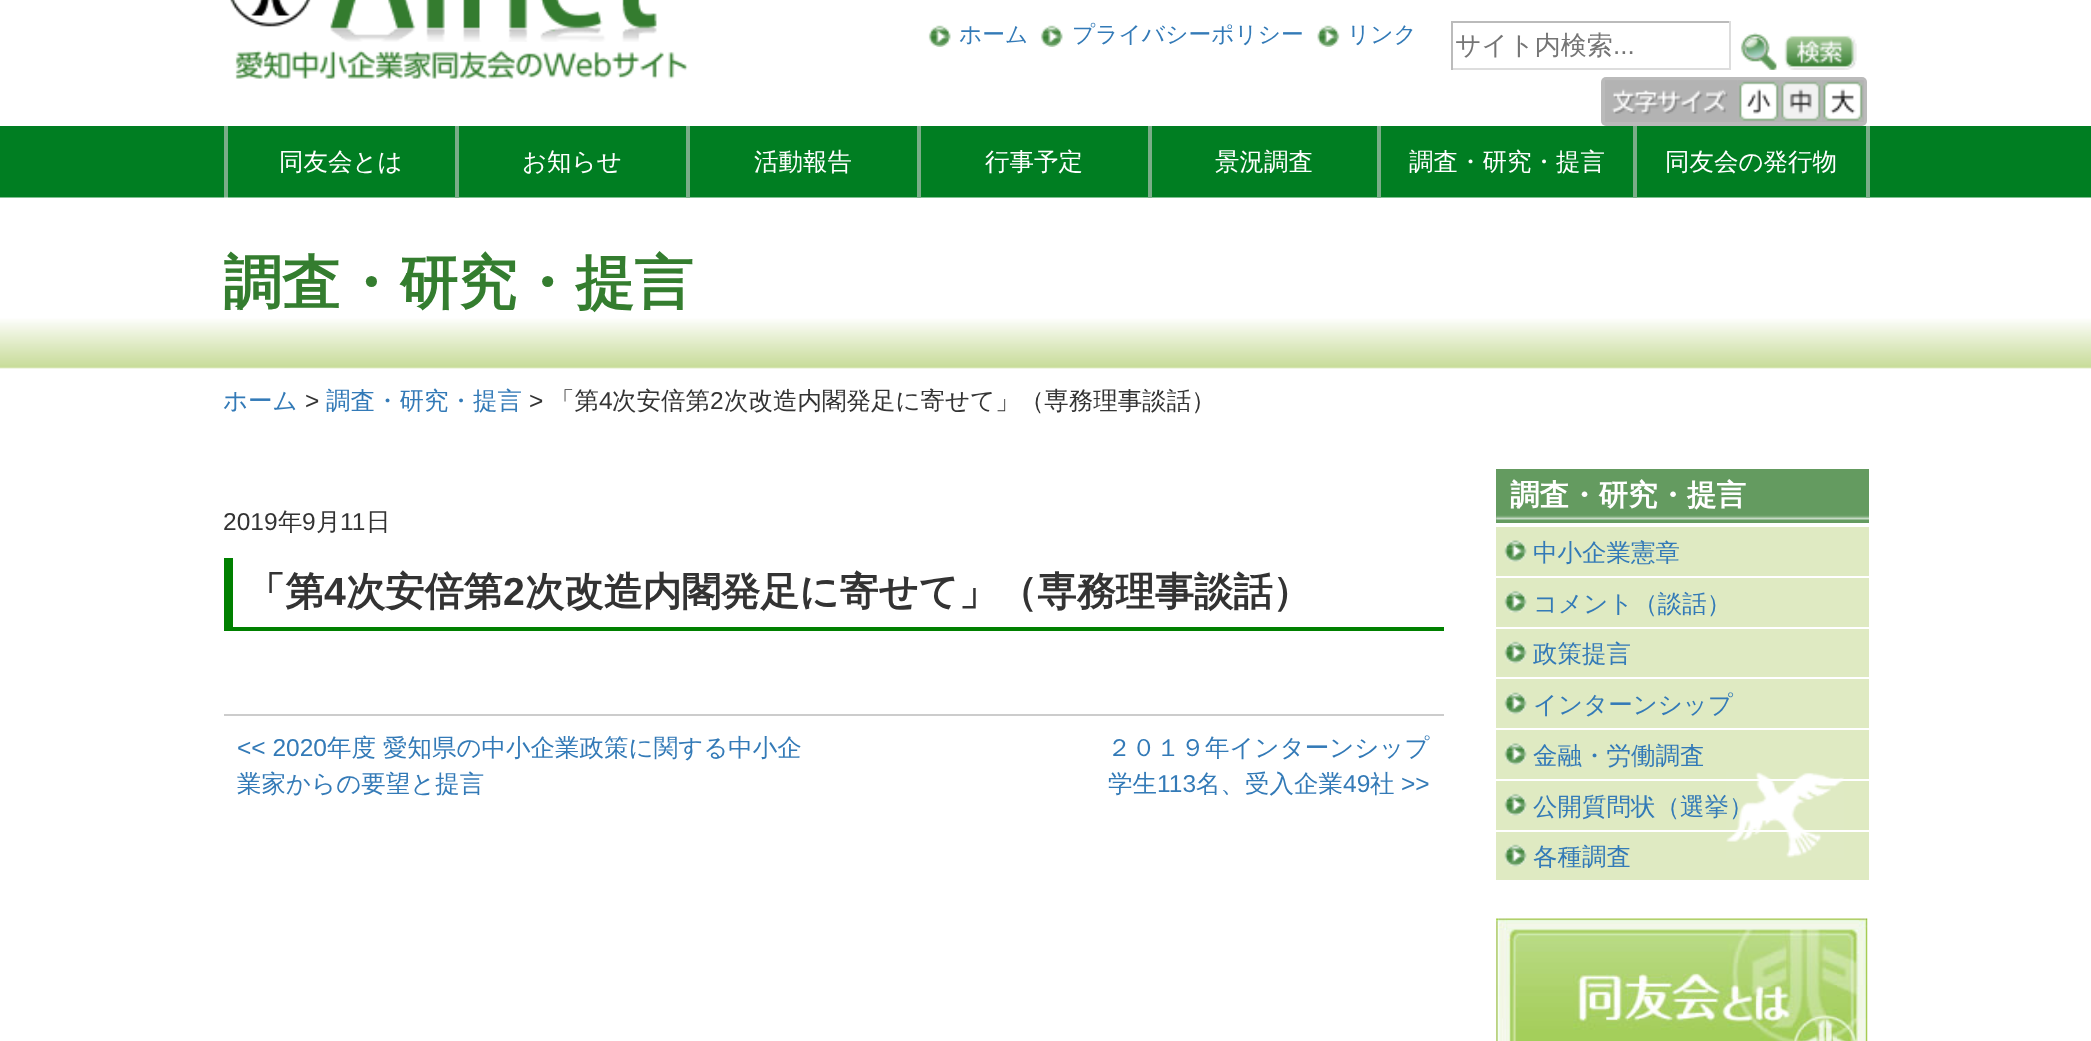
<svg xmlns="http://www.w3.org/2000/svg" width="2091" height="1041">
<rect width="100%" height="100%" fill="#fff"/>
<image x="230" y="0" width="427" height="42" href="media/1.png"/>
<image x="235" y="50" width="453" height="29" href="media/2.png"/>
<image x="928" y="25" width="23" height="22" href="media/3.png"/>
<text x="959" y="42" style="font-family:WenQuanYi Zen Hei;font-size:22.75px;font-weight:500;fill:#337ab7">ホーム</text>
<image x="1040" y="25" width="23" height="22" href="media/4.png"/>
<text x="1072" y="42" style="font-family:WenQuanYi Zen Hei;font-size:22.75px;font-weight:500;fill:#337ab7">プライバシーポリシー</text>
<image x="1317" y="25" width="23" height="22" href="media/5.png"/>
<text x="1347" y="42" style="font-family:WenQuanYi Zen Hei;font-size:22.75px;font-weight:500;fill:#337ab7">リンク</text>
<rect x="1451" y="21" width="280" height="2" fill="#bbb"/>
<rect x="1729" y="21" width="2" height="49" fill="#ddd"/>
<rect x="1451" y="68" width="280" height="2" fill="#ddd"/>
<rect x="1451" y="21" width="2" height="49" fill="#bbb"/>
<text x="1455" y="54" style="font-family:WenQuanYi Zen Hei;font-size:26px;font-weight:500;fill:#757575">サイト内検索</text>
<text x="1613" y="54" style="font-family:Liberation Sans;font-size:26px;fill:#757575">...</text>
<image x="1740" y="32" width="117" height="38" href="media/6.png"/>
<rect x="1601" y="77" width="266" height="49" rx="5" fill="#bababa"/>
<image x="1605" y="80" width="133" height="42" href="media/7.png"/>
<image x="1738" y="80" width="42" height="42" href="media/8.png"/>
<image x="1780" y="80" width="42" height="42" href="media/9.png"/>
<image x="1822" y="80" width="42" height="42" href="media/10.png"/>
<rect y="126" width="2091" height="72" fill="#007e22"/>
<rect x="224" y="126" width="4" height="72" fill="#7aad88"/>
<image x="0" y="197" width="2091" height="172" href="media/11.png"/>
<rect x="455" y="126" width="4" height="72" fill="#7aad88"/>
<text x="279" y="170" style="font-family:WenQuanYi Zen Hei;font-size:24.5px;font-weight:500;fill:#fff">同友会とは</text>
<rect x="686" y="126" width="4" height="72" fill="#7aad88"/>
<text x="522" y="170" style="font-family:WenQuanYi Zen Hei;font-size:24.5px;font-weight:500;fill:#fff">お知らせ</text>
<rect x="917" y="126" width="4" height="72" fill="#7aad88"/>
<text x="754" y="170" style="font-family:WenQuanYi Zen Hei;font-size:24.5px;font-weight:500;fill:#fff">活動報告</text>
<rect x="1148" y="126" width="4" height="72" fill="#7aad88"/>
<text x="985" y="170" style="font-family:WenQuanYi Zen Hei;font-size:24.5px;font-weight:500;fill:#fff">行事予定</text>
<rect x="1377" y="126" width="4" height="72" fill="#7aad88"/>
<text x="1215" y="170" style="font-family:WenQuanYi Zen Hei;font-size:24.5px;font-weight:500;fill:#fff">景況調査</text>
<rect x="1633" y="126" width="4" height="72" fill="#7aad88"/>
<text x="1409" y="170" style="font-family:WenQuanYi Zen Hei;font-size:24.5px;font-weight:500;fill:#fff">調査・研究・提言</text>
<rect x="1866" y="126" width="4" height="72" fill="#7aad88"/>
<text x="1665" y="170" style="font-family:WenQuanYi Zen Hei;font-size:24.5px;font-weight:500;fill:#fff">同友会の発行物</text>
<text x="223" y="303" style="font-family:WenQuanYi Zen Hei;font-size:58.75px;font-weight:bold;fill:#347d2f">調査・研究・提言</text>
<text x="223" y="409" style="font-family:WenQuanYi Zen Hei;font-size:24.5px;font-weight:500;fill:#337ab7">ホーム</text>
<text x="305" y="409" style="font-family:Liberation Sans;font-size:24.5px;fill:#333">&gt;</text>
<text x="326" y="409" style="font-family:WenQuanYi Zen Hei;font-size:24.5px;font-weight:500;fill:#337ab7">調査・研究・提言</text>
<text x="529" y="409" style="font-family:Liberation Sans;font-size:24.5px;fill:#333">&gt;</text>
<text x="550" y="409" style="font-family:WenQuanYi Zen Hei;font-size:24.5px;font-weight:500;fill:#333">「第</text>
<text x="599" y="409" style="font-family:Liberation Sans;font-size:24.5px;fill:#333">4</text>
<text x="612" y="409" style="font-family:WenQuanYi Zen Hei;font-size:24.5px;font-weight:500;fill:#333">次安倍第</text>
<text x="710" y="409" style="font-family:Liberation Sans;font-size:24.5px;fill:#333">2</text>
<text x="724" y="409" style="font-family:WenQuanYi Zen Hei;font-size:24.5px;font-weight:500;fill:#333">次改造内閣発足に寄せて」（専務理事談話）</text>
<text x="223" y="530" style="font-family:Liberation Sans;font-size:24.5px;fill:#333">2019</text>
<text x="278" y="530" style="font-family:WenQuanYi Zen Hei;font-size:24.5px;font-weight:500;fill:#333">年</text>
<text x="302" y="530" style="font-family:Liberation Sans;font-size:24.5px;fill:#333">9</text>
<text x="316" y="530" style="font-family:WenQuanYi Zen Hei;font-size:24.5px;font-weight:500;fill:#333">月</text>
<text x="340" y="530" style="font-family:Liberation Sans;font-size:24.5px;fill:#333">11</text>
<text x="366" y="530" style="font-family:WenQuanYi Zen Hei;font-size:24.5px;font-weight:500;fill:#333">日</text>
<rect x="224" y="627" width="1220" height="4" fill="#008000"/>
<rect x="224" y="558" width="9" height="69" fill="#008000"/>
<text x="246" y="605" style="font-family:WenQuanYi Zen Hei;font-size:39.2px;font-weight:bold;fill:#333">「第</text>
<text x="324" y="605" style="font-family:Liberation Sans;font-size:39.2px;font-weight:bold;fill:#333">4</text>
<text x="346" y="605" style="font-family:WenQuanYi Zen Hei;font-size:39.2px;font-weight:bold;fill:#333">次安倍第</text>
<text x="503" y="605" style="font-family:Liberation Sans;font-size:39.2px;font-weight:bold;fill:#333">2</text>
<text x="525" y="605" style="font-family:WenQuanYi Zen Hei;font-size:39.2px;font-weight:bold;fill:#333">次改造内閣発足に寄せて」（専務理事談話）</text>
<rect x="224" y="714" width="1220" height="2" fill="#ccc"/>
<text x="237" y="756" style="font-family:Liberation Sans;font-size:24.5px;fill:#337ab7">&lt;&lt; 2020</text>
<text x="327" y="756" style="font-family:WenQuanYi Zen Hei;font-size:24.5px;font-weight:500;fill:#337ab7">年度</text>
<text x="383" y="756" style="font-family:WenQuanYi Zen Hei;font-size:24.5px;font-weight:500;fill:#337ab7">愛知県の中小企業政策に関する中小企</text>
<text x="237" y="792" style="font-family:WenQuanYi Zen Hei;font-size:24.5px;font-weight:500;fill:#337ab7">業家からの要望と提言</text>
<text x="1107" y="756" style="font-family:WenQuanYi Zen Hei;font-size:24.5px;font-weight:500;fill:#337ab7">２０１９年インターンシップ</text>
<text x="1108" y="792" style="font-family:WenQuanYi Zen Hei;font-size:24.5px;font-weight:500;fill:#337ab7">学生</text>
<text x="1157" y="792" style="font-family:Liberation Sans;font-size:24.5px;fill:#337ab7">113</text>
<text x="1196" y="792" style="font-family:WenQuanYi Zen Hei;font-size:24.5px;font-weight:500;fill:#337ab7">名、受入企業</text>
<text x="1343" y="792" style="font-family:Liberation Sans;font-size:24.5px;fill:#337ab7">49</text>
<text x="1370" y="792" style="font-family:WenQuanYi Zen Hei;font-size:24.5px;font-weight:500;fill:#337ab7">社</text>
<text x="1401" y="792" style="font-family:Liberation Sans;font-size:24.5px;fill:#337ab7">&gt;&gt;</text>
<rect x="1496" y="469" width="373" height="54" fill="#649b60"/>
<image x="1496" y="515" width="373" height="5" href="media/12.png"/>
<text x="1510" y="505" style="font-family:WenQuanYi Zen Hei;font-size:29.5px;font-weight:bold;fill:#fff">調査・研究・提言</text>
<rect x="1496" y="527" width="373" height="353" fill="#dfeac2"/>
<image x="1726" y="772" width="118" height="86" href="media/13.png"/>
<image x="1504" y="540" width="23" height="22" href="media/14.png"/>
<rect x="1496" y="576" width="373" height="2" fill="#fff"/>
<text x="1533" y="561" style="font-family:WenQuanYi Zen Hei;font-size:24.5px;font-weight:500;fill:#337ab7">中小企業憲章</text>
<image x="1504" y="590" width="23" height="23" href="media/15.png"/>
<rect x="1496" y="627" width="373" height="2" fill="#fff"/>
<text x="1533" y="612" style="font-family:WenQuanYi Zen Hei;font-size:24.5px;font-weight:500;fill:#337ab7">コメント（談話）</text>
<image x="1504" y="641" width="23" height="23" href="media/16.png"/>
<rect x="1496" y="677" width="373" height="2" fill="#fff"/>
<text x="1533" y="662" style="font-family:WenQuanYi Zen Hei;font-size:24.5px;font-weight:500;fill:#337ab7">政策提言</text>
<image x="1504" y="692" width="23" height="23" href="media/17.png"/>
<rect x="1496" y="728" width="373" height="2" fill="#fff"/>
<text x="1533" y="713" style="font-family:WenQuanYi Zen Hei;font-size:24.5px;font-weight:500;fill:#337ab7">インターンシップ</text>
<image x="1504" y="743" width="23" height="22" href="media/14.png"/>
<rect x="1496" y="779" width="373" height="2" fill="#fff"/>
<text x="1533" y="764" style="font-family:WenQuanYi Zen Hei;font-size:24.5px;font-weight:500;fill:#337ab7">金融・労働調査</text>
<image x="1504" y="793" width="23" height="23" href="media/15.png"/>
<rect x="1496" y="830" width="373" height="2" fill="#fff"/>
<text x="1533" y="815" style="font-family:WenQuanYi Zen Hei;font-size:24.5px;font-weight:500;fill:#337ab7">公開質問状（選挙）</text>
<image x="1504" y="844" width="23" height="23" href="media/16.png"/>
<text x="1533" y="865" style="font-family:WenQuanYi Zen Hei;font-size:24.5px;font-weight:500;fill:#337ab7">各種調査</text>
<image x="1496" y="918" width="372" height="123" href="media/18.png"/>
</svg>
